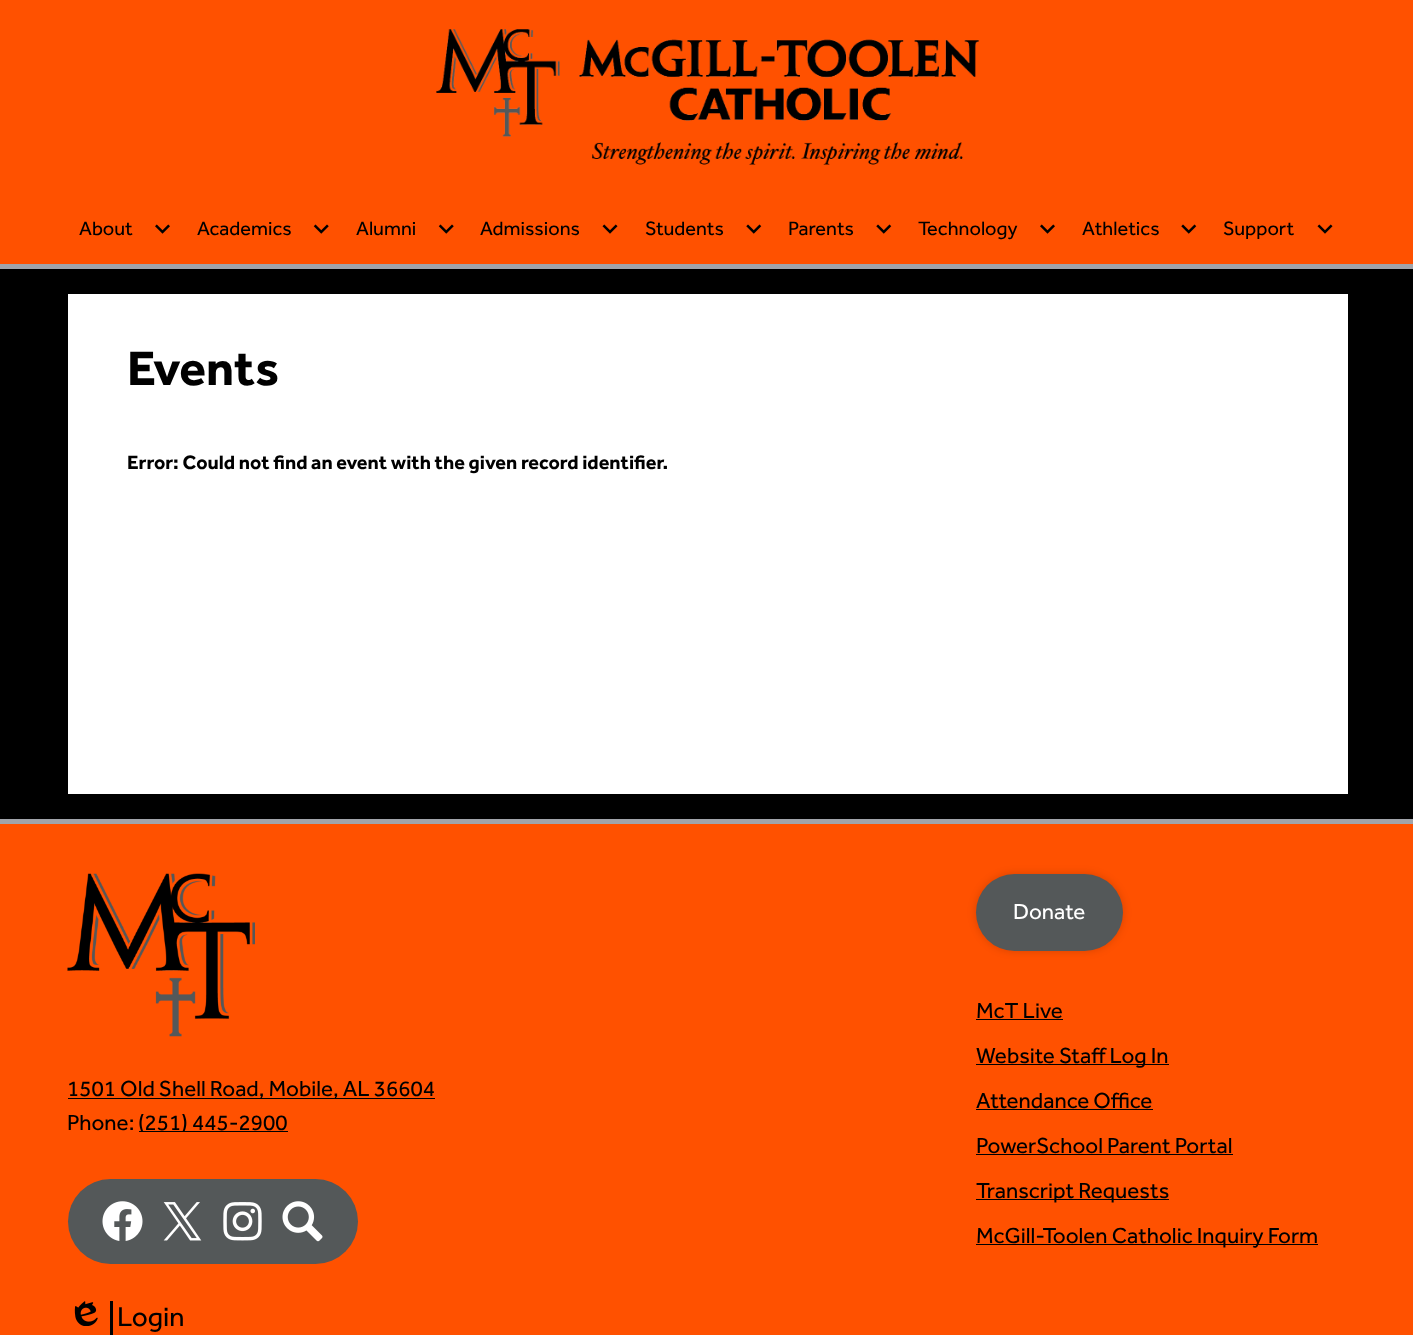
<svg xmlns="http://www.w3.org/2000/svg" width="1413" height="1335">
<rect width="100%" height="100%" fill="#000"/>
<rect width="1413" height="264" fill="#ff5100"/>
<rect y="264" width="1413" height="5" fill="#a1a4aa"/>
<image x="436" y="29" width="544" height="136" href="media/1.png"/>
<text x="79" y="235" style="font-family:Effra;font-size:20px;fill:#000">About</text>
<image x="155" y="224" width="15" height="10" href="media/2.png"/>
<text x="197" y="235" style="font-family:Effra;font-size:20px;fill:#000">Academics</text>
<image x="313" y="224" width="16" height="10" href="media/3.png"/>
<text x="356" y="235" style="font-family:Effra;font-size:20px;fill:#000">Alumni</text>
<image x="438" y="224" width="16" height="10" href="media/3.png"/>
<text x="480" y="235" style="font-family:Effra;font-size:20px;fill:#000">Admissions</text>
<image x="602" y="224" width="16" height="10" href="media/4.png"/>
<text x="645" y="235" style="font-family:Effra;font-size:20px;fill:#000">Students</text>
<image x="746" y="224" width="16" height="10" href="media/5.png"/>
<text x="788" y="235" style="font-family:Effra;font-size:20px;fill:#000">Parents</text>
<image x="876" y="224" width="16" height="10" href="media/5.png"/>
<text x="918" y="235" style="font-family:Effra;font-size:20px;fill:#000">Technology</text>
<image x="1040" y="224" width="15" height="10" href="media/2.png"/>
<text x="1082" y="235" style="font-family:Effra;font-size:20px;fill:#000">Athletics</text>
<image x="1181" y="224" width="16" height="10" href="media/5.png"/>
<text x="1223" y="235" style="font-family:Effra;font-size:20px;fill:#000">Support</text>
<image x="1317" y="224" width="16" height="10" href="media/4.png"/>
<rect x="68" y="294" width="1280" height="500" fill="#fff"/>
<text x="127" y="385" style="font-family:Effra;font-size:50px;font-weight:bold;fill:#000">Events</text>
<text x="127" y="469" style="font-family:Effra;font-size:20px;font-weight:bold;fill:#000">Error: Could not find an event with the given record identifier.</text>
<rect y="824" width="1413" height="511" fill="#ff5100"/>
<rect y="819" width="1413" height="5" fill="#a1a4aa"/>
<image x="67" y="873" width="188" height="164" href="media/6.png"/>
<rect x="68" y="1098" width="367" height="1" fill="#000"/>
<text x="67" y="1096" style="font-family:Effra;font-size:22.5px;fill:#000">1501 Old Shell Road, Mobile, AL 36604</text>
<text x="67" y="1130" style="font-family:Effra;font-size:22.5px;fill:#000">Phone:</text>
<rect x="139" y="1131" width="149" height="1" fill="#000"/>
<text x="138" y="1130" style="font-family:Effra;font-size:22.5px;fill:#000">(251) 445-2900</text>
<rect x="68" y="1179" width="290" height="85" rx="42.5" fill="#545859"/>
<image x="102" y="1201" width="41" height="40" href="media/7.png"/>
<image x="163" y="1202" width="39" height="39" href="media/8.png"/>
<image x="223" y="1202" width="39" height="39" href="media/9.png"/>
<image x="282" y="1201" width="41" height="41" href="media/10.png"/>
<rect x="976" y="874" width="147" height="77" rx="38.5" fill="#00000029" filter="blur(4px)"/>
<rect x="976" y="874" width="147" height="77" rx="38.5" fill="#545859"/>
<text x="1013" y="919" style="font-family:Effra;font-size:22.5px;fill:#fff">Donate</text>
<text x="976" y="1018" style="font-family:Effra;font-size:22.5px;fill:#000">McT Live</text>
<rect x="976" y="1019" width="87" height="1" fill="#000"/>
<rect x="976" y="1064" width="193" height="1" fill="#000"/>
<text x="976" y="1063" style="font-family:Effra;font-size:22.5px;fill:#000">Website Staff Log In</text>
<text x="976" y="1108" style="font-family:Effra;font-size:22.5px;fill:#000">Attendance Office</text>
<rect x="976" y="1109" width="177" height="1" fill="#000"/>
<text x="976" y="1153" style="font-family:Effra;font-size:22.5px;fill:#000">PowerSchool Parent Portal</text>
<rect x="976" y="1154" width="257" height="1" fill="#000"/>
<rect x="976" y="1199" width="193" height="1" fill="#000"/>
<text x="976" y="1198" style="font-family:Effra;font-size:22.5px;fill:#000">Transcript Requests</text>
<rect x="976" y="1244" width="342" height="1" fill="#000"/>
<text x="976" y="1243" style="font-family:Effra;font-size:22.5px;fill:#000">McGill-Toolen Catholic Inquiry Form</text>
<rect x="110" y="1301" width="3" height="34" fill="#000"/>
<image x="74" y="1301" width="24" height="25" href="media/11.png"/>
<text x="117" y="1326" style="font-family:Effra;font-size:28px;fill:#000">Login</text>
</svg>
